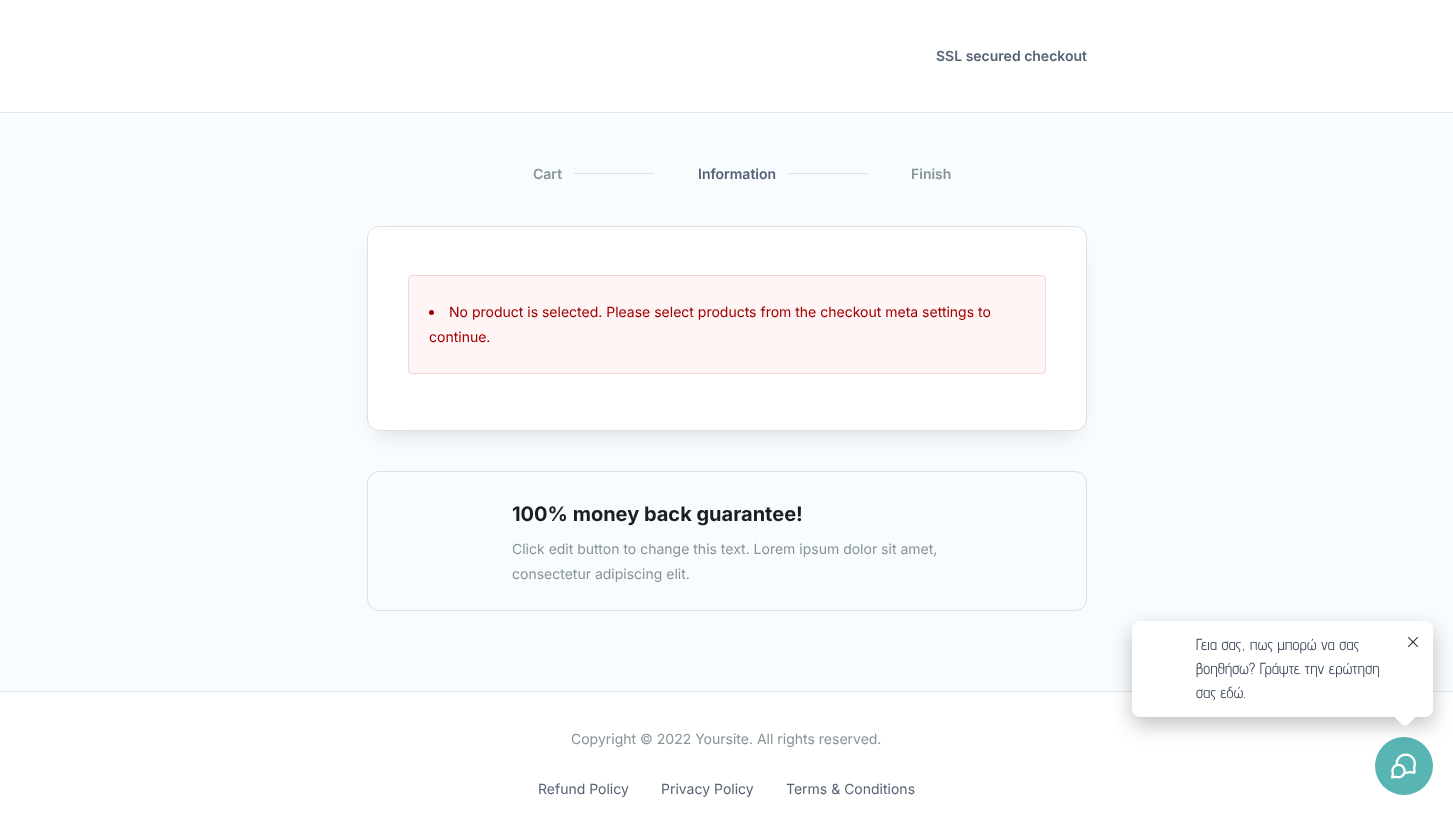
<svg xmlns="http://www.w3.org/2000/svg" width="1453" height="815">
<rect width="100%" height="100%" fill="#f8fcff"/>
<rect width="1453" height="112" fill="#fff"/>
<rect y="112" width="1453" height="1" fill="#dee7ed"/>
<text x="936" y="61" style="font-family:Inter;font-size:14px;font-weight:600;fill:#566376">SSL secured checkout</text>
<text x="533" y="179" style="font-family:Inter;font-size:14px;font-weight:600;fill:#869498">Cart</text>
<rect x="574" y="173" width="80" height="1" fill="#dee0e3"/>
<text x="698" y="179" style="font-family:Inter;font-size:14px;font-weight:600;fill:#566376">Information</text>
<rect x="788" y="173" width="80" height="1" fill="#dee0e3"/>
<text x="911" y="179" style="font-family:Inter;font-size:14px;font-weight:600;fill:#869498">Finish</text>
<rect x="379" y="250" width="696" height="181" fill="#00000029" filter="blur(12px)"/>
<rect x="367.5" y="226.5" width="719" height="204" rx="11.5" fill="#fff" stroke="#dee0e3"/>
<rect x="408.5" y="275.5" width="637" height="98" rx="3.5" fill="#fff5f5" stroke="#f3d5d8"/>
<circle cx="431.5" cy="312.5" r="2.5" fill="#a10000"/>
<text x="449" y="317" style="font-family:Inter;font-size:14px;fill:#a10000">No product is selected. Please select products from the checkout meta settings to</text>
<text x="429" y="342" style="font-family:Inter;font-size:14px;fill:#a10000">continue.</text>
<rect x="367.5" y="471.5" width="719" height="139" rx="11.5" fill="none" stroke="#dee0e3"/>
<text x="512" y="521" style="font-family:Inter;font-size:20px;font-weight:bold;fill:#1a1e23">100% money back guarantee!</text>
<text x="512" y="554" style="font-family:Inter;font-size:14px;fill:#869498">Click edit button to change this text. Lorem ipsum dolor sit amet,</text>
<text x="512" y="579" style="font-family:Inter;font-size:14px;fill:#869498">consectetur adipiscing elit.</text>
<rect y="692" width="1453" height="123" fill="#fff"/>
<rect y="691" width="1453" height="1" fill="#dee7ed"/>
<text x="571" y="744" style="font-family:Inter;font-size:14px;fill:#869498">Copyright © 2022 Yoursite. All rights reserved.</text>
<text x="538" y="794" style="font-family:Inter;font-size:14px;fill:#566376">Refund Policy</text>
<text x="661" y="794" style="font-family:Inter;font-size:14px;fill:#566376">Privacy Policy</text>
<text x="786" y="794" style="font-family:Inter;font-size:14px;fill:#566376">Terms &amp; Conditions</text>
<circle cx="1404" cy="766" r="29" fill="#58b5b4"/>
<image x="1391" y="753" width="25" height="26" href="media/2.png"/>
<rect x="1132" y="629" width="301" height="96" rx="8" fill="#0000003d" filter="blur(10px)"/>
<rect x="1132" y="621" width="301" height="96" rx="8" fill="#fff"/>
<text x="1196" y="650" style="font-family:Advent Pro;font-size:16px;fill:#344054">Γεια σας, πως μπορώ να σας</text>
<text x="1196" y="674" style="font-family:Advent Pro;font-size:16px;fill:#344054">βοηθήσω? Γράψτε την ερώτηση</text>
<text x="1196" y="698" style="font-family:Advent Pro;font-size:16px;fill:#344054">σας εδώ.</text>
<path d="M1408 701.5l8.5 8.5c1.5 1.5 1.5 4.5 0 6l-8.5 8.5c-1.5 1.5-4.5 1.5-6 0l-8.5-8.5c-1.5-1.5-1.5-4.5 0-6l8.5-8.5c1.5-1.5 4.5-1.5 6 0z" fill="#fff"/>
<image x="1408" y="637" width="10" height="10" href="media/1.png"/>
</svg>
